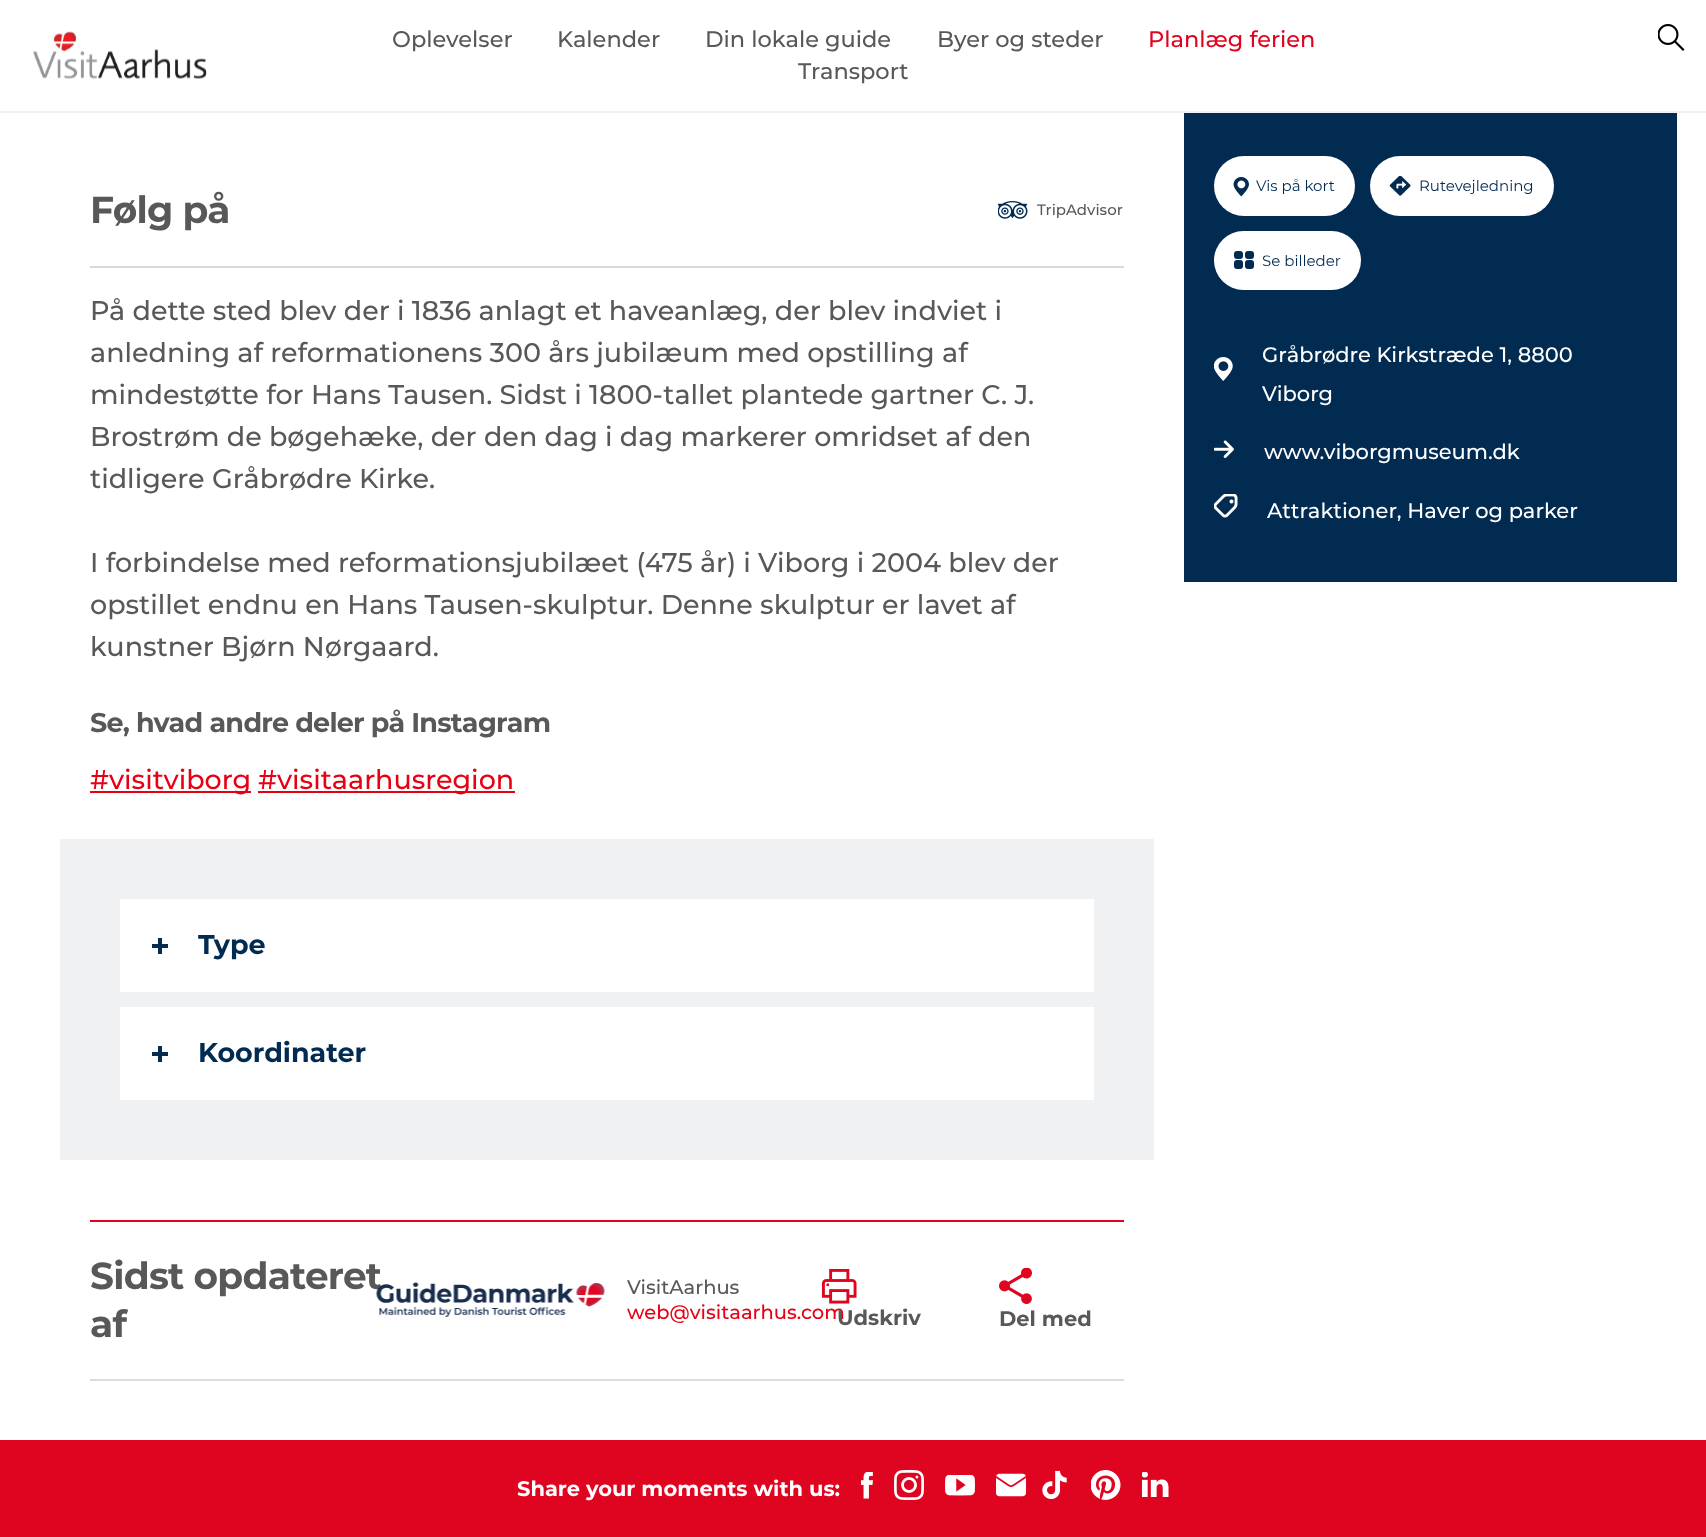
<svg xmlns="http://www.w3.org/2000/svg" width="1706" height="1537">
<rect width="100%" height="100%" fill="#fff"/>
<rect y="111" width="1706" height="2" fill="#f0f1f3"/>
<image x="33" y="31" width="174" height="48" href="media/1.png"/>
<text x="392" y="47" style="font-family:Montserrat;font-size:22.5px;font-weight:500;fill:#585858">Oplevelser</text>
<text x="557" y="47" style="font-family:Montserrat;font-size:22.5px;font-weight:500;fill:#585858">Kalender</text>
<text x="705" y="47" style="font-family:Montserrat;font-size:22.5px;font-weight:500;fill:#585858">Din lokale guide</text>
<text x="937" y="47" style="font-family:Montserrat;font-size:22.5px;font-weight:500;fill:#585858">Byer og steder</text>
<text x="1148" y="47" style="font-family:Montserrat;font-size:22.5px;font-weight:500;fill:#df041f">Planlæg ferien</text>
<text x="798" y="79" style="font-family:Montserrat;font-size:22.5px;font-weight:500;fill:#585858">Transport</text>
<image x="1658" y="24" width="27" height="27" href="media/2.png"/>
<rect x="90" y="266" width="1034" height="2" fill="#d8dadc"/>
<text x="90" y="223" style="font-family:Montserrat;font-size:37.5px;font-weight:bold;letter-spacing:-0.75px;fill:#585858">Følg på</text>
<image x="998" y="201" width="30" height="18" href="media/3.png"/>
<text x="1037" y="215" style="font-family:Montserrat;font-size:15px;font-weight:500;fill:#585858">TripAdvisor</text>
<text x="90" y="320" style="font-family:Montserrat;font-size:27px;font-weight:500;fill:#585858">På dette sted blev der i 1836 anlagt et haveanlæg, der blev indviet i</text>
<text x="90" y="362" style="font-family:Montserrat;font-size:27px;font-weight:500;fill:#585858">anledning af reformationens 300 års jubilæum med opstilling af</text>
<text x="90" y="404" style="font-family:Montserrat;font-size:27px;font-weight:500;fill:#585858">mindestøtte for Hans Tausen. Sidst i 1800-tallet plantede gartner C. J.</text>
<text x="90" y="446" style="font-family:Montserrat;font-size:27px;font-weight:500;fill:#585858">Brostrøm de bøgehæke, der den dag i dag markerer omridset af den</text>
<text x="90" y="488" style="font-family:Montserrat;font-size:27px;font-weight:500;fill:#585858">tidligere Gråbrødre Kirke.</text>
<text x="90" y="572" style="font-family:Montserrat;font-size:27px;font-weight:500;fill:#585858">I forbindelse med reformationsjubilæet (475 år) i Viborg i 2004 blev der</text>
<text x="90" y="614" style="font-family:Montserrat;font-size:27px;font-weight:500;fill:#585858">opstillet endnu en Hans Tausen-skulptur. Denne skulptur er lavet af</text>
<text x="90" y="656" style="font-family:Montserrat;font-size:27px;font-weight:500;fill:#585858">kunstner Bjørn Nørgaard.</text>
<text x="90" y="732" style="font-family:Montserrat;font-size:27px;font-weight:bold;letter-spacing:-0.75px;fill:#585858">Se, hvad andre deler på Instagram</text>
<rect x="90" y="791" width="161" height="2" fill="#e70013"/>
<text x="90" y="789" style="font-family:Montserrat;font-size:27px;font-weight:500;fill:#e70013">#visitviborg</text>
<rect x="258" y="791" width="257" height="2" fill="#e70013"/>
<text x="258" y="789" style="font-family:Montserrat;font-size:27px;font-weight:500;fill:#e70013">#visitaarhusregion</text>
<rect x="60" y="839" width="1094" height="321" fill="#eff1f3"/>
<rect x="120" y="899" width="974" height="93" fill="#fff"/>
<rect x="152" y="944" width="16" height="4" fill="#022b52"/>
<rect x="158" y="938" width="4" height="16" fill="#022b52"/>
<text x="198" y="954" style="font-family:Montserrat;font-size:27px;font-weight:bold;fill:#022b52">Type</text>
<rect x="120" y="1007" width="974" height="93" fill="#fff"/>
<rect x="152" y="1052" width="16" height="4" fill="#022b52"/>
<rect x="158" y="1046" width="4" height="16" fill="#022b52"/>
<text x="198" y="1062" style="font-family:Montserrat;font-size:27px;font-weight:bold;fill:#022b52">Koordinater</text>
<rect x="90" y="1220" width="1034" height="2" fill="#df041f"/>
<rect x="90" y="1379" width="1034" height="2" fill="#dedcda"/>
<text x="90" y="1289" style="font-family:Montserrat;font-size:37.5px;font-weight:bold;letter-spacing:-0.75px;fill:#585858">Sidst opdateret</text>
<text x="90" y="1337" style="font-family:Montserrat;font-size:37.5px;font-weight:bold;letter-spacing:-0.75px;fill:#585858">af</text>
<image x="376" y="1282" width="229" height="35" href="media/4.png"/>
<text x="627" y="1294" style="font-family:Montserrat;font-size:19.5px;font-weight:500;fill:#585858">VisitAarhus</text>
<text x="627" y="1319" style="font-family:Montserrat;font-size:19.5px;font-weight:500;fill:#e70013">web@visitaarhus.com</text>
<image x="822" y="1269" width="35" height="35" href="media/5.png"/>
<text x="837" y="1325" style="font-family:Montserrat;font-size:21px;font-weight:bold;fill:#585858">Udskriv</text>
<image x="999" y="1268" width="33" height="36" href="media/6.png"/>
<text x="999" y="1326" style="font-family:Montserrat;font-size:21px;font-weight:bold;fill:#585858">Del med</text>
<rect x="1184" y="113" width="493" height="469" fill="#022b52"/>
<rect x="1214" y="156" width="141" height="60" rx="30" fill="#fff"/>
<image x="1233" y="177" width="16" height="20" href="media/7.png"/>
<text x="1256" y="191" style="font-family:Montserrat;font-size:15px;fill:#022b52">Vis på kort</text>
<rect x="1370" y="156" width="184" height="60" rx="30" fill="#fff"/>
<image x="1389" y="176" width="22" height="20" href="media/8.png"/>
<text x="1419" y="191" style="font-family:Montserrat;font-size:15px;fill:#022b52">Rutevejledning</text>
<rect x="1214" y="231" width="147" height="59" rx="29.5" fill="#fff"/>
<rect x="1245" y="251" width="9" height="8" rx="3" fill="#022b52"/>
<rect x="1245" y="260" width="9" height="9" rx="3" fill="#022b52"/>
<rect x="1234" y="251" width="9" height="8" rx="3" fill="#022b52"/>
<rect x="1234" y="260" width="9" height="9" rx="3" fill="#022b52"/>
<text x="1262" y="266" style="font-family:Montserrat;font-size:15px;fill:#022b52">Se billeder</text>
<image x="1214" y="357" width="19" height="24" href="media/9.png"/>
<text x="1262" y="362" style="font-family:Montserrat;font-size:21px;font-weight:500;fill:#fff">Gråbrødre Kirkstræde 1, 8800</text>
<text x="1262" y="401" style="font-family:Montserrat;font-size:21px;font-weight:500;fill:#fff">Viborg</text>
<image x="1214" y="440" width="20" height="18" href="media/10.png"/>
<text x="1264" y="459" style="font-family:Montserrat;font-size:21px;font-weight:500;fill:#fff">www.viborgmuseum.dk</text>
<image x="1214" y="494" width="24" height="24" href="media/11.png"/>
<text x="1267" y="518" style="font-family:Montserrat;font-size:21px;font-weight:500;fill:#fff">Attraktioner, Haver og parker</text>
<rect y="1440" width="1706" height="97" fill="#df041f"/>
<text x="517" y="1496" style="font-family:Montserrat;font-size:21px;font-weight:bold;fill:#fff">Share your moments with us:</text>
<image x="861" y="1472" width="12" height="27" href="media/12.png"/>
<image x="894" y="1470" width="30" height="30" href="media/13.png"/>
<image x="945" y="1475" width="30" height="21" href="media/14.png"/>
<image x="996" y="1473" width="30" height="24" href="media/15.png"/>
<image x="1042" y="1470" width="25" height="30" href="media/16.png"/>
<image x="1091" y="1470" width="30" height="30" href="media/17.png"/>
<image x="1142" y="1472" width="27" height="25" href="media/18.png"/>
</svg>
